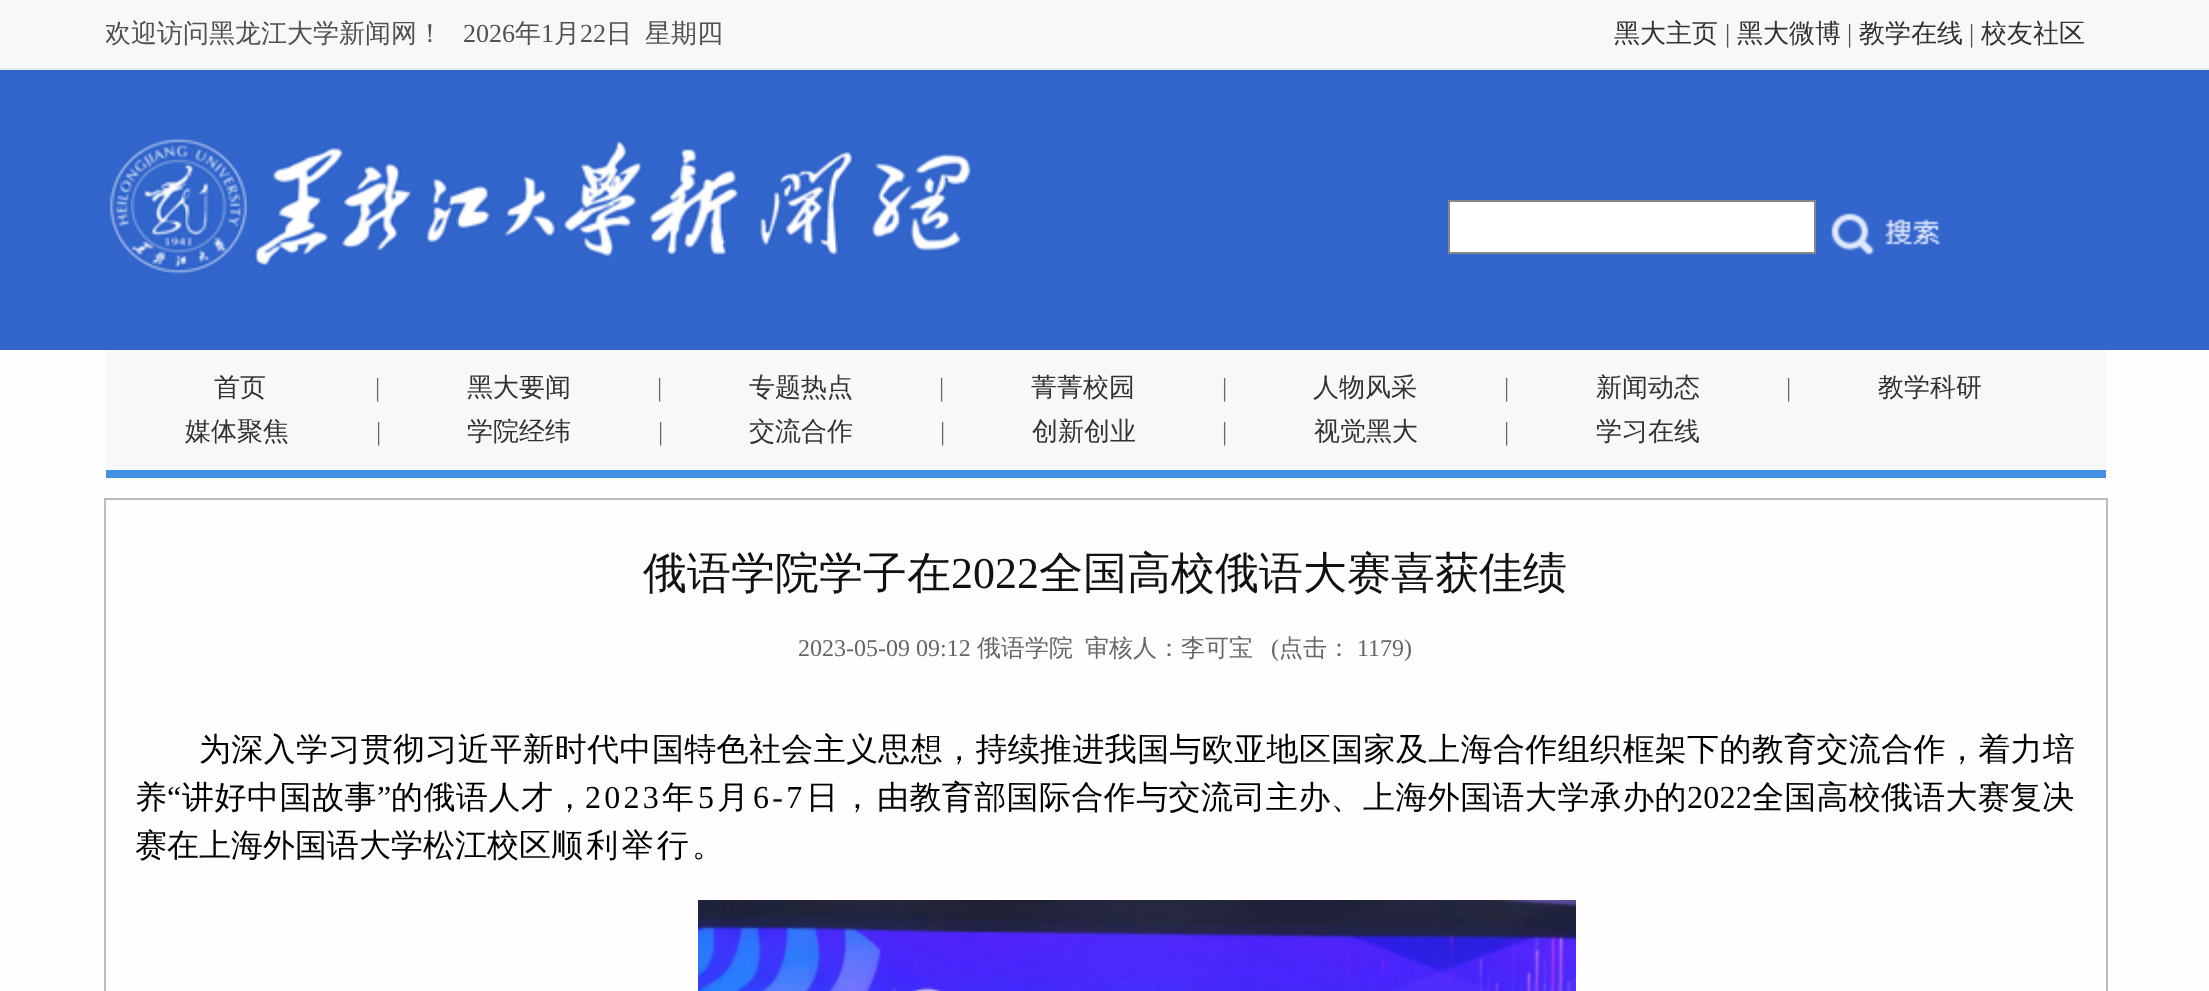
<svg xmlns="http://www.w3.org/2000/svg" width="2209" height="991">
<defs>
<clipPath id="clip1"><rect x="106" width="2000" height="136"/></clipPath>
</defs>
<rect width="100%" height="100%" fill="#fffdfd"/>
<rect width="2209" height="68" fill="#f8f8f8"/>
<rect y="68" width="2209" height="2" fill="#eaeaea"/>
<g clip-path="url(#clip1)">
<text x="105" y="42" style="font-family:WenQuanYi Zen Hei;font-size:26px;font-weight:500;fill:#515151">欢迎访问黑龙江大学新闻网！</text>
</g>
<text x="463" y="42" style="font-family:Liberation Serif;font-size:26px;fill:#515151">2026</text>
<text x="515" y="42" style="font-family:WenQuanYi Zen Hei;font-size:26px;font-weight:500;fill:#515151">年</text>
<text x="541" y="42" style="font-family:Liberation Serif;font-size:26px;fill:#515151">1</text>
<text x="554" y="42" style="font-family:WenQuanYi Zen Hei;font-size:26px;font-weight:500;fill:#515151">月</text>
<text x="580" y="42" style="font-family:Liberation Serif;font-size:26px;fill:#515151">22</text>
<text x="606" y="42" style="font-family:WenQuanYi Zen Hei;font-size:26px;font-weight:500;fill:#515151">日</text>
<text x="645" y="42" style="font-family:WenQuanYi Zen Hei;font-size:26px;font-weight:500;fill:#515151">星期四</text>
<text x="1614" y="42" style="font-family:WenQuanYi Zen Hei;font-size:26px;font-weight:500;fill:#333">黑大主页</text>
<text x="1725" y="42" style="font-family:Liberation Serif;font-size:26px;fill:#515151">|</text>
<text x="1737" y="42" style="font-family:WenQuanYi Zen Hei;font-size:26px;font-weight:500;fill:#333">黑大微博</text>
<text x="1847" y="42" style="font-family:Liberation Serif;font-size:26px;fill:#515151">|</text>
<text x="1859" y="42" style="font-family:WenQuanYi Zen Hei;font-size:26px;font-weight:500;fill:#333">教学在线</text>
<text x="1969" y="42" style="font-family:Liberation Serif;font-size:26px;fill:#515151">|</text>
<text x="1981" y="42" style="font-family:WenQuanYi Zen Hei;font-size:26px;font-weight:500;fill:#333">校友社区</text>
<rect y="70" width="2209" height="280" fill="#36c"/>
<image x="108" y="137" width="864" height="137" href="media/1.png"/>
<rect x="1449" y="201" width="366" height="52" fill="#fff" stroke="#878787" stroke-width="2"/>
<image x="1831" y="213" width="110" height="45" href="media/2.png"/>
<rect x="106" y="350" width="2000" height="120" fill="#f8f8f8"/>
<rect x="106" y="470" width="2000" height="8" fill="#4391e2"/>
<text x="214" y="396" style="font-family:WenQuanYi Zen Hei;font-size:26px;font-weight:500;fill:#333">首页</text>
<text x="375" y="396" style="font-family:Liberation Serif;font-size:26px;fill:#666">|</text>
<text x="467" y="396" style="font-family:WenQuanYi Zen Hei;font-size:26px;font-weight:500;fill:#333">黑大要闻</text>
<text x="657" y="396" style="font-family:Liberation Serif;font-size:26px;fill:#666">|</text>
<text x="749" y="396" style="font-family:WenQuanYi Zen Hei;font-size:26px;font-weight:500;fill:#333">专题热点</text>
<text x="939" y="396" style="font-family:Liberation Serif;font-size:26px;fill:#666">|</text>
<text x="1031" y="396" style="font-family:WenQuanYi Zen Hei;font-size:26px;font-weight:500;fill:#333">菁菁校园</text>
<text x="1222" y="396" style="font-family:Liberation Serif;font-size:26px;fill:#666">|</text>
<text x="1313" y="396" style="font-family:WenQuanYi Zen Hei;font-size:26px;font-weight:500;fill:#333">人物风采</text>
<text x="1504" y="396" style="font-family:Liberation Serif;font-size:26px;fill:#666">|</text>
<text x="1596" y="396" style="font-family:WenQuanYi Zen Hei;font-size:26px;font-weight:500;fill:#333">新闻动态</text>
<text x="1786" y="396" style="font-family:Liberation Serif;font-size:26px;fill:#666">|</text>
<text x="1878" y="396" style="font-family:WenQuanYi Zen Hei;font-size:26px;font-weight:500;fill:#333">教学科研</text>
<text x="185" y="440" style="font-family:WenQuanYi Zen Hei;font-size:26px;font-weight:500;fill:#333">媒体聚焦</text>
<text x="376" y="440" style="font-family:Liberation Serif;font-size:26px;fill:#666">|</text>
<text x="467" y="440" style="font-family:WenQuanYi Zen Hei;font-size:26px;font-weight:500;fill:#333">学院经纬</text>
<text x="658" y="440" style="font-family:Liberation Serif;font-size:26px;fill:#666">|</text>
<text x="749" y="440" style="font-family:WenQuanYi Zen Hei;font-size:26px;font-weight:500;fill:#333">交流合作</text>
<text x="940" y="440" style="font-family:Liberation Serif;font-size:26px;fill:#666">|</text>
<text x="1032" y="440" style="font-family:WenQuanYi Zen Hei;font-size:26px;font-weight:500;fill:#333">创新创业</text>
<text x="1222" y="440" style="font-family:Liberation Serif;font-size:26px;fill:#666">|</text>
<text x="1314" y="440" style="font-family:WenQuanYi Zen Hei;font-size:26px;font-weight:500;fill:#333">视觉黑大</text>
<text x="1504" y="440" style="font-family:Liberation Serif;font-size:26px;fill:#666">|</text>
<text x="1596" y="440" style="font-family:WenQuanYi Zen Hei;font-size:26px;font-weight:500;fill:#333">学习在线</text>
<rect x="105" y="499" width="2002" height="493" fill="none" stroke="#bbb" stroke-width="2"/>
<text x="643" y="588" style="font-family:WenQuanYi Zen Hei;font-size:44px;font-weight:500;fill:#111">俄语学院学子在</text>
<text x="951" y="588" style="font-family:Liberation Serif;font-size:44px;fill:#111">2022</text>
<text x="1039" y="588" style="font-family:WenQuanYi Zen Hei;font-size:44px;font-weight:500;fill:#111">全国高校俄语大赛喜获佳绩</text>
<text x="798" y="656" style="font-family:Liberation Serif;font-size:24px;fill:#666">2023-05-09 09:12</text>
<text x="977" y="656" style="font-family:WenQuanYi Zen Hei;font-size:24px;font-weight:500;fill:#666">俄语学院</text>
<text x="1085" y="656" style="font-family:WenQuanYi Zen Hei;font-size:24px;font-weight:500;fill:#666">审核人：李可宝</text>
<text x="1271" y="656" style="font-family:Liberation Serif;font-size:24px;fill:#666">(</text>
<text x="1279" y="656" style="font-family:WenQuanYi Zen Hei;font-size:24px;font-weight:500;fill:#666">点击：</text>
<text x="1357" y="656" style="font-family:Liberation Serif;font-size:24px;fill:#666">1179)</text>
<text x="199" y="760" style="font-family:WenQuanYi Zen Hei;font-size:32px;font-weight:500;letter-spacing:0.35px;fill:#000">为深入学习贯彻习近平新时代中国特色社会主义思想，持续推进我国与欧亚地区国家及上海合作组织框架下的教育交流合作，着力培</text>
<text x="135" y="808" style="font-family:WenQuanYi Zen Hei;font-size:32px;font-weight:500;fill:#000">养</text>
<text x="167" y="808" style="font-family:Liberation Serif;font-size:32px;letter-spacing:0.5px;fill:#000">“</text>
<text x="182" y="808" style="font-family:WenQuanYi Zen Hei;font-size:32px;font-weight:500;letter-spacing:0.5px;fill:#000">讲好中国故事</text>
<text x="377" y="808" style="font-family:Liberation Serif;font-size:32px;letter-spacing:0.5px;fill:#000">”</text>
<text x="391" y="808" style="font-family:WenQuanYi Zen Hei;font-size:32px;font-weight:500;letter-spacing:0.5px;fill:#000">的俄语人才，</text>
<text x="585" y="808" style="font-family:Liberation Serif;font-size:32px;letter-spacing:3.25px;fill:#000">2023</text>
<text x="662" y="808" style="font-family:WenQuanYi Zen Hei;font-size:32px;font-weight:500;letter-spacing:3.25px;fill:#000">年</text>
<text x="698" y="808" style="font-family:Liberation Serif;font-size:32px;letter-spacing:3.25px;fill:#000">5</text>
<text x="717" y="808" style="font-family:WenQuanYi Zen Hei;font-size:32px;font-weight:500;letter-spacing:3.25px;fill:#000">月</text>
<text x="753" y="808" style="font-family:Liberation Serif;font-size:32px;letter-spacing:3.25px;fill:#000">6-7</text>
<text x="806" y="808" style="font-family:WenQuanYi Zen Hei;font-size:32px;font-weight:500;letter-spacing:3.25px;fill:#000">日，</text>
<text x="877" y="808" style="font-family:WenQuanYi Zen Hei;font-size:32px;font-weight:500;letter-spacing:0.4px;fill:#000">由教育部国际合作与交流司主办、上海外国语大学承办的</text>
<text x="1687" y="808" style="font-family:Liberation Serif;font-size:32px;letter-spacing:0.25px;fill:#000">2022</text>
<text x="1752" y="808" style="font-family:WenQuanYi Zen Hei;font-size:32px;font-weight:500;letter-spacing:0.25px;fill:#000">全国高校俄语大赛复决</text>
<text x="135" y="856" style="font-family:WenQuanYi Zen Hei;font-size:32px;font-weight:500;fill:#000">赛在上海外国语大学松江校区</text>
<text x="551" y="856" style="font-family:WenQuanYi Zen Hei;font-size:32px;font-weight:500;letter-spacing:3.25px;fill:#000">顺利举行。</text>
<image x="698" y="900" width="878" height="91" href="media/3.png"/>
</svg>
